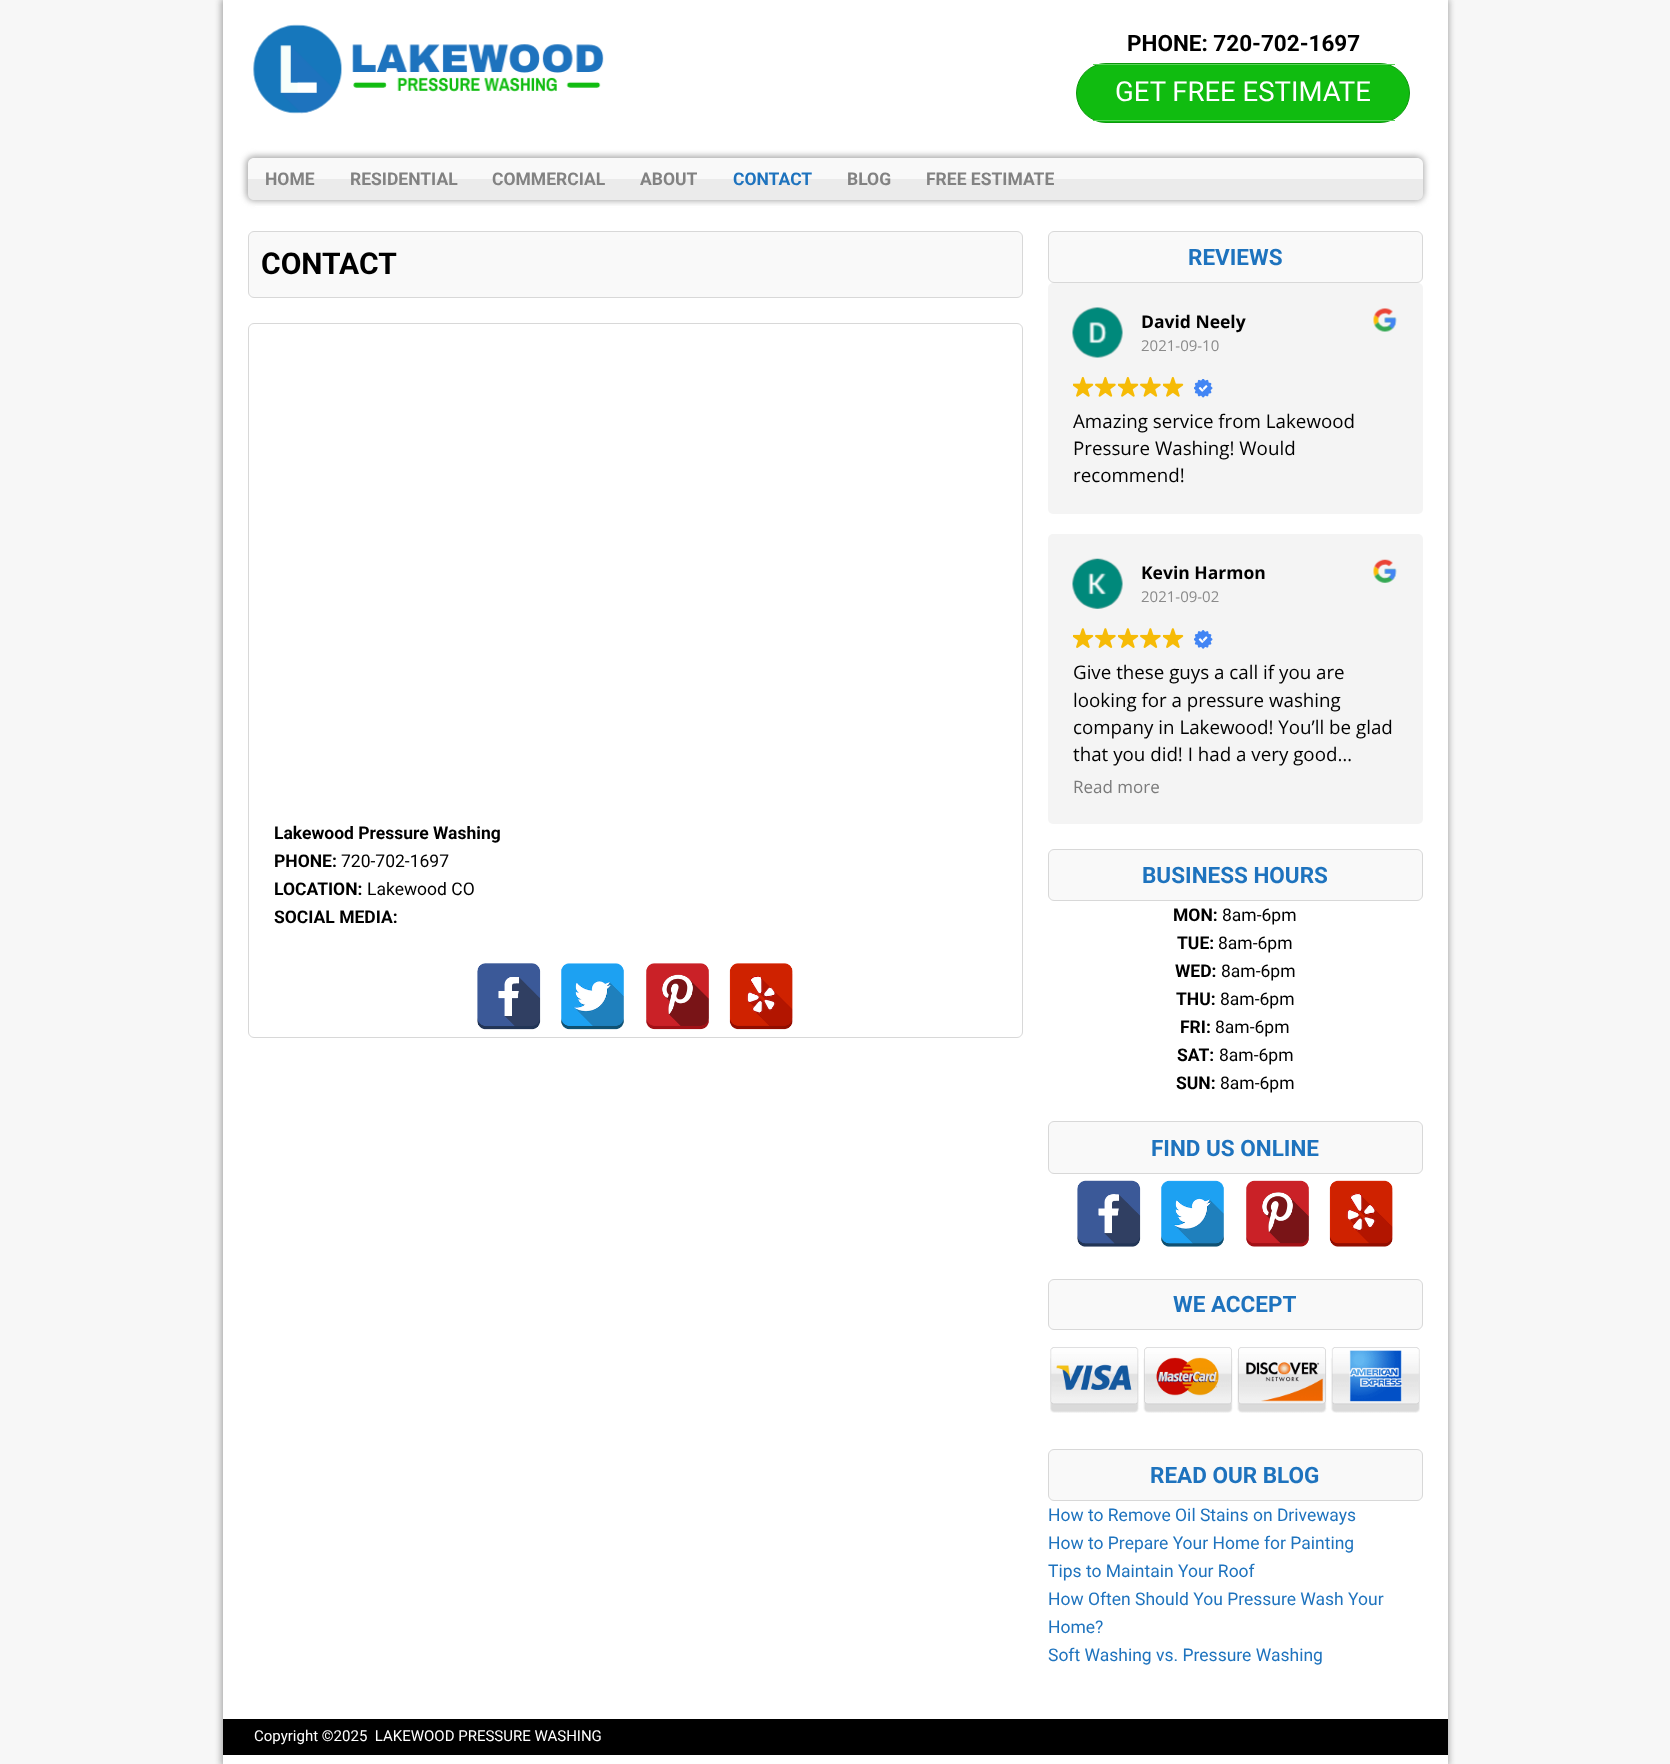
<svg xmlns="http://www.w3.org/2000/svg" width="1670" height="1764">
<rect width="100%" height="100%" fill="#f7f7f7"/>
<rect x="221" y="-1" width="1228" height="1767" fill="#a8a8a8" filter="blur(3px)"/>
<rect x="223" width="1225" height="1764" fill="#fff"/>
<image x="253" y="24" width="351" height="90" href="media/1.png"/>
<text x="1127" y="51" style="font-family:Roboto;font-size:22.5px;font-weight:bold;fill:#000">PHONE: 720-702-1697</text>
<rect x="1076.5" y="63.5" width="333" height="59" rx="29.5" fill="#10bc10" stroke="#0d970d"/>
<rect x="1093" y="64" width="302" height="1" fill="#58d158"/>
<rect x="1093" y="120" width="302" height="1" fill="#58d158"/>
<text x="1115" y="101" style="font-family:Roboto;font-size:27.5px;fill:#fff">GET FREE ESTIMATE</text>
<rect x="246" y="156" width="1178" height="45" rx="8" fill="#a8a8a8" filter="blur(3px)"/>
<path d="M254 158h1163c3.5 0 6 2.5 6 6v15h-1175v-15c0-3.5 2.5-6 6-6z" fill="#f9f9f9"/>
<path d="M248 179h1175v15c0 3.5-2.5 6-6 6h-1163c-3.5 0-6-2.5-6-6z" fill="#ebebeb"/>
<text x="265" y="185" style="font-family:Roboto;font-size:17.5px;font-weight:bold;fill:#828282">HOME</text>
<text x="350" y="185" style="font-family:Roboto;font-size:17.5px;font-weight:bold;fill:#828282">RESIDENTIAL</text>
<text x="492" y="185" style="font-family:Roboto;font-size:17.5px;font-weight:bold;fill:#828282">COMMERCIAL</text>
<text x="640" y="185" style="font-family:Roboto;font-size:17.5px;font-weight:bold;fill:#828282">ABOUT</text>
<text x="733" y="185" style="font-family:Roboto;font-size:17.5px;font-weight:bold;fill:#1e73be">CONTACT</text>
<text x="847" y="185" style="font-family:Roboto;font-size:17.5px;font-weight:bold;fill:#828282">BLOG</text>
<text x="926" y="185" style="font-family:Roboto;font-size:17.5px;font-weight:bold;fill:#828282">FREE ESTIMATE</text>
<rect x="255" y="206" width="1160" height="1" fill="#fff"/>
<rect x="248.5" y="231.5" width="774" height="66" rx="5.5" fill="#f9f9f9" stroke="#d8d8d8"/>
<text x="261" y="274" style="font-family:Roboto;font-size:30px;font-weight:bold;fill:#000">CONTACT</text>
<rect x="248.5" y="323.5" width="774" height="714" rx="5.5" fill="none" stroke="#d8d8d8"/>
<text x="274" y="839" style="font-family:Roboto;font-size:17.5px;font-weight:bold;fill:#000">Lakewood Pressure Washing</text>
<text x="274" y="867" style="font-family:Roboto;font-size:17.5px;font-weight:bold;fill:#000">PHONE:</text>
<text x="341" y="867" style="font-family:Roboto;font-size:17.5px;fill:#000">720-702-1697</text>
<text x="274" y="895" style="font-family:Roboto;font-size:17.5px;font-weight:bold;fill:#000">LOCATION:</text>
<text x="367" y="895" style="font-family:Roboto;font-size:17.5px;fill:#000">Lakewood CO</text>
<text x="274" y="923" style="font-family:Roboto;font-size:17.5px;font-weight:bold;fill:#000">SOCIAL MEDIA:</text>
<image x="477" y="963" width="64" height="67" href="media/2.png"/>
<image x="561" y="963" width="63" height="67" href="media/3.png"/>
<image x="646" y="963" width="63" height="67" href="media/4.png"/>
<image x="729" y="963" width="64" height="67" href="media/5.png"/>
<rect x="1048.5" y="231.5" width="374" height="51" rx="5.5" fill="#f9f9f9" stroke="#d8d8d8"/>
<text x="1188" y="265" style="font-family:Roboto;font-size:22.5px;font-weight:bold;fill:#1e73be">REVIEWS</text>
<rect x="1048" y="283" width="375" height="231" rx="5" fill="#f4f4f4"/>
<image x="1072" y="307" width="51" height="51" href="media/6.png"/>
<text x="1141" y="328" style="font-family:Open Sans;font-size:17.5px;font-weight:bold;fill:#000">David Neely</text>
<text x="1141" y="351" style="font-family:Open Sans;font-size:15px;fill:#8a8a8a">2021-09-10</text>
<image x="1373" y="308" width="24" height="24" href="media/7.png"/>
<image x="1073" y="377" width="21" height="20" href="media/8.png"/>
<image x="1095" y="376" width="21" height="21" href="media/9.png"/>
<image x="1118" y="377" width="21" height="20" href="media/8.png"/>
<image x="1140" y="376" width="21" height="21" href="media/9.png"/>
<image x="1163" y="377" width="21" height="20" href="media/8.png"/>
<image x="1194" y="379" width="19" height="19" href="media/10.png"/>
<text x="1073" y="428" style="font-family:Open Sans;font-size:18.75px;fill:#000">Amazing service from Lakewood</text>
<text x="1073" y="455" style="font-family:Open Sans;font-size:18.75px;fill:#000">Pressure Washing! Would</text>
<text x="1073" y="482" style="font-family:Open Sans;font-size:18.75px;fill:#000">recommend!</text>
<rect x="1048" y="534" width="375" height="290" rx="5" fill="#f4f4f4"/>
<image x="1072" y="558" width="51" height="51" href="media/11.png"/>
<text x="1141" y="579" style="font-family:Open Sans;font-size:17.5px;font-weight:bold;fill:#000">Kevin Harmon</text>
<text x="1141" y="602" style="font-family:Open Sans;font-size:15px;fill:#8a8a8a">2021-09-02</text>
<image x="1373" y="559" width="24" height="24" href="media/12.png"/>
<image x="1073" y="628" width="21" height="20" href="media/13.png"/>
<image x="1095" y="628" width="21" height="20" href="media/14.png"/>
<image x="1118" y="628" width="21" height="20" href="media/13.png"/>
<image x="1140" y="628" width="21" height="20" href="media/14.png"/>
<image x="1163" y="628" width="21" height="20" href="media/13.png"/>
<image x="1194" y="630" width="19" height="19" href="media/15.png"/>
<text x="1073" y="679" style="font-family:Open Sans;font-size:18.75px;fill:#000">Give these guys a call if you are</text>
<text x="1073" y="707" style="font-family:Open Sans;font-size:18.75px;fill:#000">looking for a pressure washing</text>
<text x="1073" y="734" style="font-family:Open Sans;font-size:18.75px;fill:#000">company in Lakewood! You’ll be glad</text>
<text x="1073" y="761" style="font-family:Open Sans;font-size:18.75px;fill:#000">that you did! I had a very good…</text>
<text x="1073" y="793" style="font-family:Open Sans;font-size:17px;fill:#7a7a7a">Read more</text>
<rect x="1048.5" y="849.5" width="374" height="51" rx="5.5" fill="#f9f9f9" stroke="#d8d8d8"/>
<text x="1142" y="883" style="font-family:Roboto;font-size:22.5px;font-weight:bold;fill:#1e73be">BUSINESS HOURS</text>
<text x="1173" y="921" style="font-family:Roboto;font-size:17.5px;font-weight:bold;fill:#000">MON:</text>
<text x="1222" y="921" style="font-family:Roboto;font-size:17.5px;fill:#000">8am-6pm</text>
<text x="1177" y="949" style="font-family:Roboto;font-size:17.5px;font-weight:bold;fill:#000">TUE:</text>
<text x="1218" y="949" style="font-family:Roboto;font-size:17.5px;fill:#000">8am-6pm</text>
<text x="1175" y="977" style="font-family:Roboto;font-size:17.5px;font-weight:bold;fill:#000">WED:</text>
<text x="1221" y="977" style="font-family:Roboto;font-size:17.5px;fill:#000">8am-6pm</text>
<text x="1176" y="1005" style="font-family:Roboto;font-size:17.5px;font-weight:bold;fill:#000">THU:</text>
<text x="1220" y="1005" style="font-family:Roboto;font-size:17.5px;fill:#000">8am-6pm</text>
<text x="1180" y="1033" style="font-family:Roboto;font-size:17.5px;font-weight:bold;fill:#000">FRI:</text>
<text x="1215" y="1033" style="font-family:Roboto;font-size:17.5px;fill:#000">8am-6pm</text>
<text x="1177" y="1061" style="font-family:Roboto;font-size:17.5px;font-weight:bold;fill:#000">SAT:</text>
<text x="1219" y="1061" style="font-family:Roboto;font-size:17.5px;fill:#000">8am-6pm</text>
<text x="1176" y="1089" style="font-family:Roboto;font-size:17.5px;font-weight:bold;fill:#000">SUN:</text>
<text x="1220" y="1089" style="font-family:Roboto;font-size:17.5px;fill:#000">8am-6pm</text>
<rect x="1048.5" y="1121.5" width="374" height="52" rx="5.5" fill="#f9f9f9" stroke="#d8d8d8"/>
<text x="1151" y="1156" style="font-family:Roboto;font-size:22.5px;font-weight:bold;fill:#1e73be">FIND US ONLINE</text>
<image x="1077" y="1180" width="64" height="67" href="media/16.png"/>
<image x="1161" y="1180" width="63" height="67" href="media/17.png"/>
<image x="1246" y="1180" width="63" height="67" href="media/18.png"/>
<image x="1329" y="1180" width="64" height="67" href="media/19.png"/>
<rect x="1048.5" y="1279.5" width="374" height="50" rx="5.5" fill="#f9f9f9" stroke="#d8d8d8"/>
<text x="1173" y="1312" style="font-family:Roboto;font-size:22.5px;font-weight:bold;fill:#1e73be">WE ACCEPT</text>
<image x="1050" y="1347" width="370" height="66" href="media/20.png"/>
<rect x="1048.5" y="1449.5" width="374" height="51" rx="5.5" fill="#f9f9f9" stroke="#d8d8d8"/>
<text x="1150" y="1483" style="font-family:Roboto;font-size:22.5px;font-weight:bold;fill:#1e73be">READ OUR BLOG</text>
<text x="1048" y="1521" style="font-family:Roboto;font-size:17.5px;fill:#1e73be">How to Remove Oil Stains on Driveways</text>
<text x="1048" y="1549" style="font-family:Roboto;font-size:17.5px;fill:#1e73be">How to Prepare Your Home for Painting</text>
<text x="1048" y="1577" style="font-family:Roboto;font-size:17.5px;fill:#1e73be">Tips to Maintain Your Roof</text>
<text x="1048" y="1605" style="font-family:Roboto;font-size:17.5px;fill:#1e73be">How Often Should You Pressure Wash Your</text>
<text x="1048" y="1633" style="font-family:Roboto;font-size:17.5px;fill:#1e73be">Home?</text>
<text x="1048" y="1661" style="font-family:Roboto;font-size:17.5px;fill:#1e73be">Soft Washing vs. Pressure Washing</text>
<rect x="223" y="1719" width="1225" height="36" fill="#000"/>
<text x="254" y="1741" style="font-family:Roboto;font-size:15px;fill:#fff" xml:space="preserve">Copyright ©2025  LAKEWOOD PRESSURE WASHING</text>
</svg>
